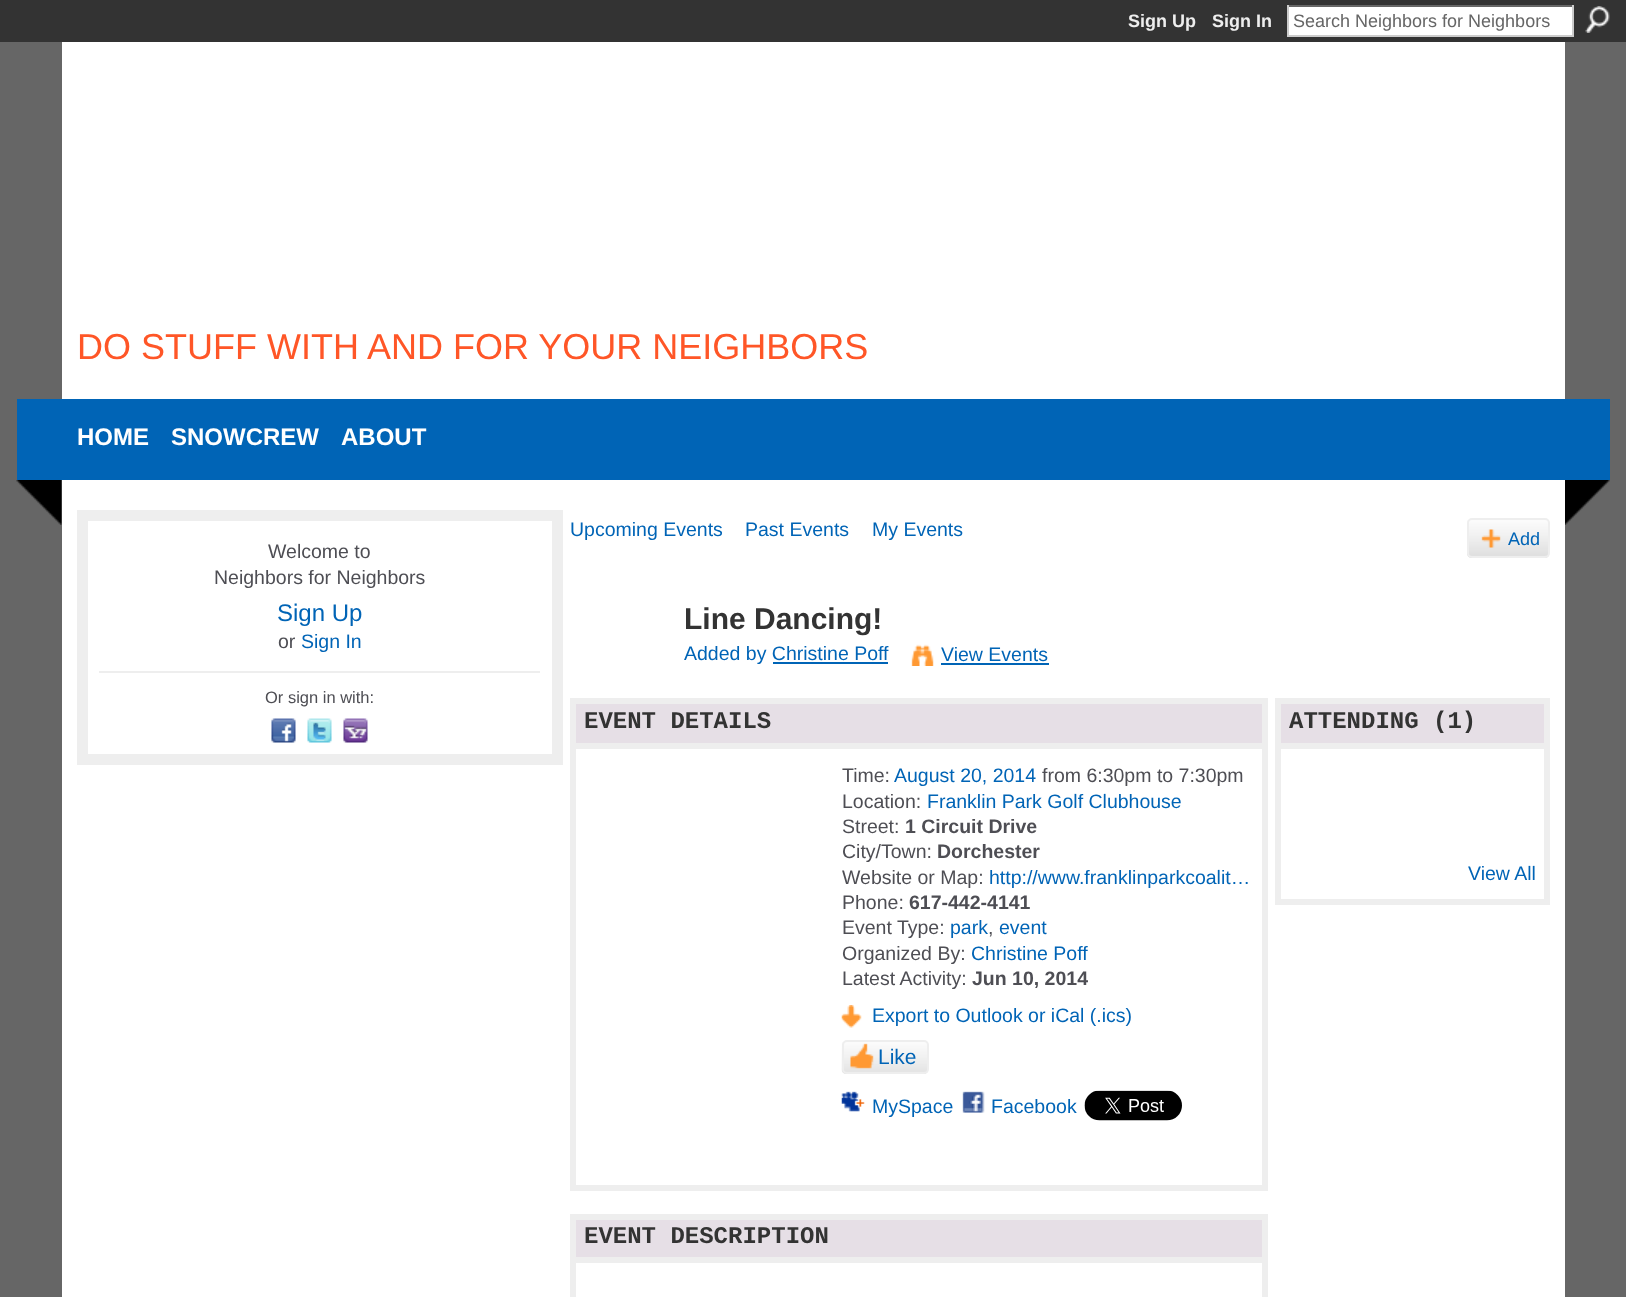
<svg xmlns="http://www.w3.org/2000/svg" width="1626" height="1297">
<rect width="100%" height="100%" fill="#666"/>
<rect width="1626" height="42" fill="#333"/>
<text x="1128" y="27" style="font-family:Liberation Sans;font-size:18px;font-weight:bold;fill:#eee">Sign Up</text>
<text x="1212" y="27" style="font-family:Liberation Sans;font-size:18px;font-weight:bold;fill:#eee">Sign In</text>
<rect x="1289" y="7" width="283" height="28" fill="#fff"/>
<rect x="1287" y="5" width="287" height="2" fill="#666"/>
<rect x="1572" y="5" width="2" height="31" fill="#ccc"/>
<rect x="1287" y="35" width="287" height="2" fill="#ccc"/>
<rect x="1287" y="5" width="2" height="31" fill="#ccc"/>
<text x="1293" y="27" style="font-family:Liberation Sans;font-size:18px;fill:#666">Search Neighbors for Neighbors</text>
<image x="1585" y="6" width="25" height="27" href="media/1.png"/>
<rect x="62" y="42" width="1503" height="357" fill="#fff"/>
<text x="77" y="359" style="font-family:Liberation Sans;font-size:36px;fill:#ff5627">DO STUFF WITH AND FOR YOUR NEIGHBORS</text>
<rect x="17" y="399" width="1593" height="81" fill="#0064b6"/>
<text x="77" y="445" style="font-family:Liberation Sans;font-size:24px;font-weight:bold;fill:#fff">HOME</text>
<text x="171" y="445" style="font-family:Liberation Sans;font-size:24px;font-weight:bold;fill:#fff">SNOWCREW</text>
<text x="341" y="445" style="font-family:Liberation Sans;font-size:24px;font-weight:bold;fill:#fff">ABOUT</text>
<image x="16" y="480" width="1594" height="45" href="media/2.png"/>
<rect x="62" y="480" width="1503" height="817" fill="#fff"/>
<rect x="80" y="513" width="480" height="249" fill="none" stroke="#eee" stroke-width="6"/>
<rect x="85.5" y="518.5" width="469" height="238" fill="none" stroke="#eee" stroke-width="5"/>
<text x="268" y="558" style="font-family:Liberation Sans;font-size:19.5px;fill:#4e4e54">Welcome to</text>
<text x="214" y="584" style="font-family:Liberation Sans;font-size:19.5px;fill:#4e4e54">Neighbors for Neighbors</text>
<text x="277" y="621" style="font-family:Liberation Sans;font-size:24px;fill:#0064b6">Sign Up</text>
<text x="278" y="648" style="font-family:Liberation Sans;font-size:19.5px;fill:#4e4e54">or</text>
<text x="301" y="648" style="font-family:Liberation Sans;font-size:19.5px;fill:#0064b6">Sign In</text>
<rect x="99" y="671" width="441" height="2" fill="#eee"/>
<text x="265" y="703" style="font-family:Liberation Sans;font-size:16.5px;fill:#4e4e54">Or sign in with:</text>
<image x="271" y="718" width="25" height="25" href="media/3.png"/>
<image x="307" y="718" width="25" height="25" href="media/4.png"/>
<image x="343" y="718" width="25" height="25" href="media/5.png"/>
<text x="570" y="536" style="font-family:Liberation Sans;font-size:19.5px;fill:#0064b6">Upcoming Events</text>
<text x="745" y="536" style="font-family:Liberation Sans;font-size:19.5px;fill:#0064b6">Past Events</text>
<text x="872" y="536" style="font-family:Liberation Sans;font-size:19.5px;fill:#0064b6">My Events</text>
<image x="1467" y="520" width="83" height="38" href="media/6.png"/>
<rect x="1468" y="519" width="81" height="38" rx="4" fill="none" stroke="#eee" stroke-width="2"/>
<image x="1481" y="529" width="20" height="19" href="media/7.png"/>
<text x="1508" y="545" style="font-family:Liberation Sans;font-size:18px;fill:#0064b6">Add</text>
<text x="684" y="629" style="font-family:Liberation Sans;font-size:30px;font-weight:bold;fill:#333">Line Dancing!</text>
<text x="684" y="660" style="font-family:Liberation Sans;font-size:19.5px;fill:#0064b6">Added by Christine Poff</text>
<rect x="773" y="662" width="115" height="2" fill="#0064b6"/>
<image x="911" y="644" width="23" height="22" href="media/8.png"/>
<text x="941" y="661" style="font-family:Liberation Sans;font-size:19.5px;fill:#0064b6">View Events</text>
<rect x="941" y="663" width="108" height="2" fill="#0064b6"/>
<rect x="573" y="701" width="692" height="487" fill="none" stroke="#eee" stroke-width="6"/>
<rect x="576" y="704" width="686" height="39" fill="#e6dfe6"/>
<rect x="576" y="743" width="686" height="6" fill="#eee"/>
<text x="584" y="728" style="font-family:Liberation Mono;font-size:24px;font-weight:bold;fill:#333">EVENT DETAILS</text>
<text x="842" y="782" style="font-family:Liberation Sans;font-size:19.5px;fill:#4e4e54">Time:</text>
<text x="894" y="782" style="font-family:Liberation Sans;font-size:19.5px;fill:#0064b6">August 20, 2014</text>
<text x="1042" y="782" style="font-family:Liberation Sans;font-size:19.5px;fill:#4e4e54">from 6:30pm to 7:30pm</text>
<text x="842" y="808" style="font-family:Liberation Sans;font-size:19.5px;fill:#4e4e54">Location:</text>
<text x="927" y="808" style="font-family:Liberation Sans;font-size:19.5px;fill:#0064b6">Franklin Park Golf Clubhouse</text>
<text x="842" y="833" style="font-family:Liberation Sans;font-size:19.5px;fill:#4e4e54">Street:</text>
<text x="905" y="833" style="font-family:Liberation Sans;font-size:19.5px;font-weight:bold;fill:#4e4e54">1 Circuit Drive</text>
<text x="842" y="858" style="font-family:Liberation Sans;font-size:19.5px;fill:#4e4e54">City/Town:</text>
<text x="937" y="858" style="font-family:Liberation Sans;font-size:19.5px;font-weight:bold;fill:#4e4e54">Dorchester</text>
<text x="842" y="884" style="font-family:Liberation Sans;font-size:19.5px;fill:#4e4e54">Website or Map:</text>
<text x="989" y="884" style="font-family:Liberation Sans;font-size:19.5px;fill:#0064b6">http://www.franklinparkcoalit…</text>
<text x="842" y="909" style="font-family:Liberation Sans;font-size:19.5px;fill:#4e4e54">Phone:</text>
<text x="909" y="909" style="font-family:Liberation Sans;font-size:19.5px;font-weight:bold;fill:#4e4e54">617-442-4141</text>
<text x="842" y="934" style="font-family:Liberation Sans;font-size:19.5px;fill:#4e4e54">Event Type:</text>
<text x="950" y="934" style="font-family:Liberation Sans;font-size:19.5px;fill:#0064b6">park</text>
<text x="988" y="934" style="font-family:Liberation Sans;font-size:19.5px;fill:#4e4e54">,</text>
<text x="999" y="934" style="font-family:Liberation Sans;font-size:19.5px;fill:#0064b6">event</text>
<text x="842" y="960" style="font-family:Liberation Sans;font-size:19.5px;fill:#4e4e54">Organized By:</text>
<text x="971" y="960" style="font-family:Liberation Sans;font-size:19.5px;fill:#0064b6">Christine Poff</text>
<text x="842" y="985" style="font-family:Liberation Sans;font-size:19.5px;fill:#4e4e54">Latest Activity:</text>
<text x="972" y="985" style="font-family:Liberation Sans;font-size:19.5px;font-weight:bold;fill:#4e4e54">Jun 10, 2014</text>
<image x="841" y="1005" width="21" height="23" href="media/9.png"/>
<text x="872" y="1022" style="font-family:Liberation Sans;font-size:19.5px;fill:#0064b6">Export to Outlook or iCal (.ics)</text>
<image x="841" y="1042" width="88" height="32" href="media/10.png"/>
<rect x="843" y="1041" width="85" height="32" rx="4" fill="none" stroke="#eee" stroke-width="2"/>
<image x="850" y="1043" width="24" height="26" href="media/11.png"/>
<text x="878" y="1064" style="font-family:Liberation Sans;font-size:21px;fill:#0064b6">Like</text>
<image x="841" y="1091" width="24" height="21" href="media/12.png"/>
<text x="872" y="1113" style="font-family:Liberation Sans;font-size:19.5px;fill:#0064b6">MySpace</text>
<image x="962" y="1091" width="23" height="22" href="media/13.png"/>
<text x="991" y="1113" style="font-family:Liberation Sans;font-size:19.5px;fill:#0064b6">Facebook</text>
<image x="1084" y="1090" width="98" height="31" href="media/14.png"/>
<rect x="573" y="1217" width="692" height="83" fill="none" stroke="#eee" stroke-width="6"/>
<rect x="576" y="1220" width="686" height="37" fill="#e6dfe6"/>
<rect x="576" y="1257" width="686" height="6" fill="#eee"/>
<text x="584" y="1243" style="font-family:Liberation Mono;font-size:24px;font-weight:bold;fill:#333">EVENT DESCRIPTION</text>
<rect x="1278" y="701" width="269" height="201" fill="none" stroke="#eee" stroke-width="6"/>
<rect x="1281" y="704" width="263" height="39" fill="#e6dfe6"/>
<rect x="1281" y="743" width="263" height="6" fill="#eee"/>
<text x="1289" y="728" style="font-family:Liberation Mono;font-size:24px;font-weight:bold;fill:#333">ATTENDING (1)</text>
<text x="1468" y="880" style="font-family:Liberation Sans;font-size:19.5px;fill:#0064b6">View All</text>
</svg>
